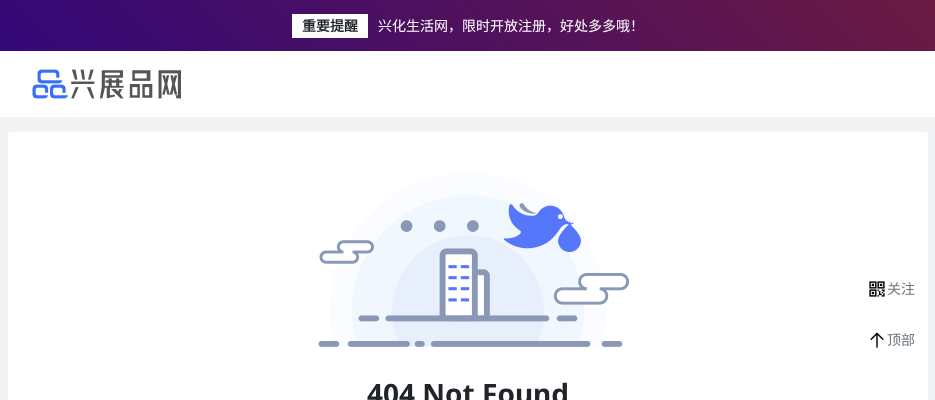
<svg xmlns="http://www.w3.org/2000/svg" width="935" height="400">
<defs>
<linearGradient id="g1" gradientUnits="userSpaceOnUse" x1="221" y1="272" x2="714" y2="-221"><stop offset="0" stop-color="#330879"/><stop offset="1" stop-color="#6b1a42"/></linearGradient>
</defs>
<rect width="100%" height="100%" fill="#f2f3f5"/>
<rect width="935" height="51" fill="url(#g1)"/>
<rect x="292" y="14" width="76" height="24" fill="#fff"/>
<text x="302" y="31" style="font-family:Noto Sans CJK SC;font-size:14px;font-weight:bold;fill:#212529">重要提醒</text>
<text x="378" y="31" style="font-family:Noto Sans CJK SC;font-size:14px;fill:#fff">兴化生活网，限时开放注册，好处多多哦！</text>
<rect y="51" width="935" height="66" fill="#fff"/>
<image x="32" y="69" width="149" height="30" href="media/1.png"/>
<rect x="8" y="132" width="920" height="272" rx="4" fill="#fff"/>
<image x="869" y="281" width="16" height="16" href="media/2.png"/>
<text x="887" y="294" style="font-family:Noto Sans CJK SC;font-size:14px;fill:#6c757d">关注</text>
<image x="870" y="332" width="14" height="16" href="media/3.png"/>
<text x="887" y="345" style="font-family:Noto Sans CJK SC;font-size:14px;fill:#6c757d">顶部</text>
<image x="318" y="173" width="311" height="174" href="media/4.png"/>
<text x="367" y="404" style="font-family:Noto Sans;font-size:28px;font-weight:bold;fill:#212529">404 Not Found</text>
</svg>
